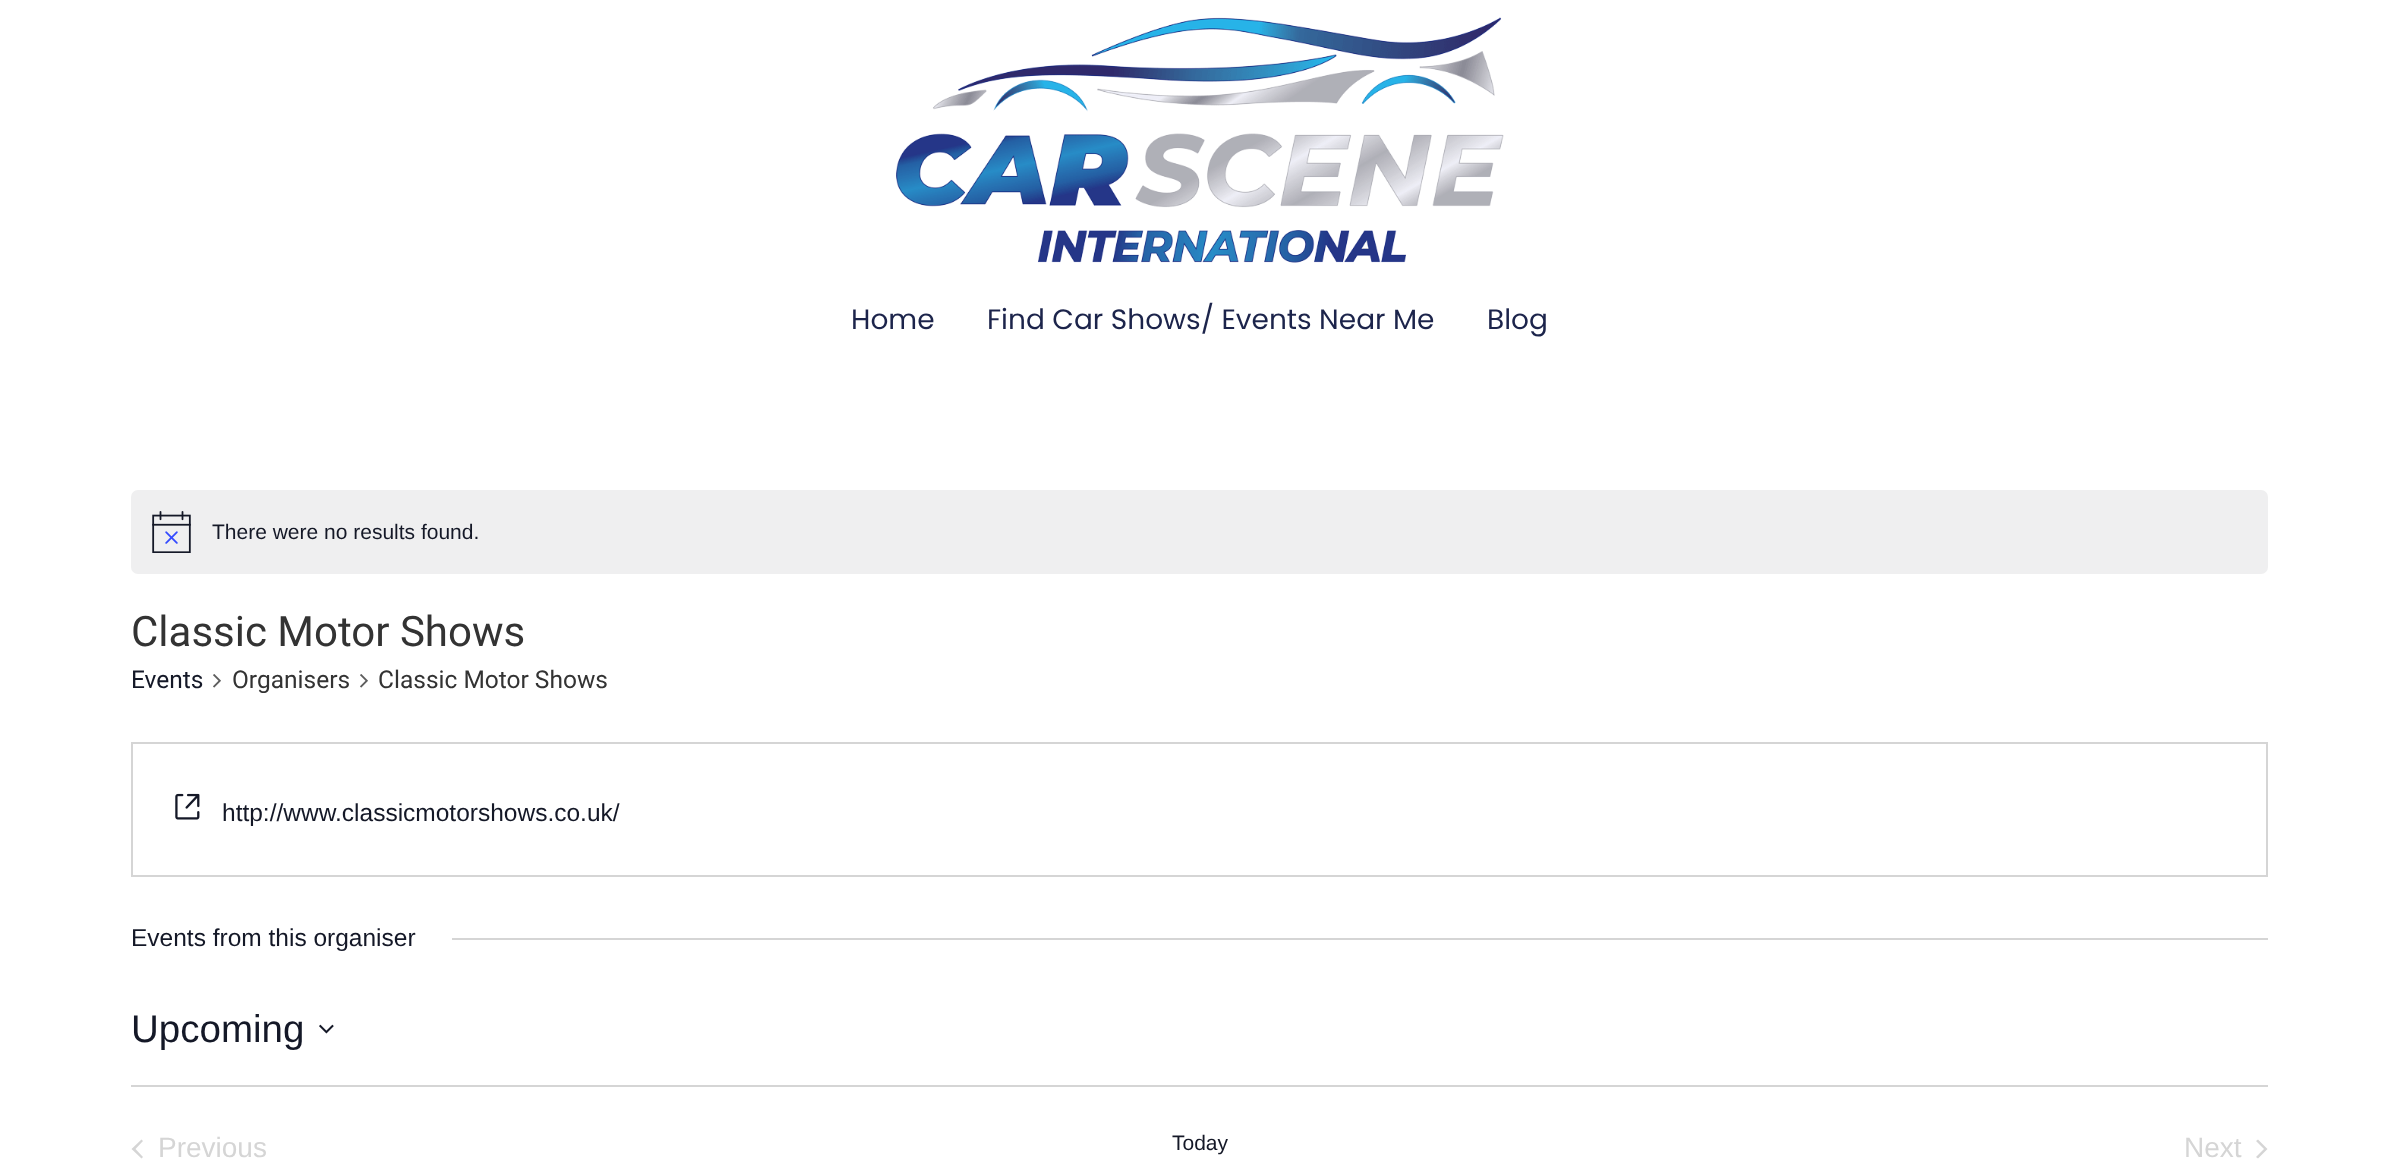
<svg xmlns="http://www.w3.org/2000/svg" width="2398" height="1163">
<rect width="100%" height="100%" fill="#fff"/>
<image x="896" y="17" width="608" height="246" href="media/1.png"/>
<text x="851" y="329" style="font-family:Poppins;font-size:28px;fill:#1c244b">Home</text>
<text x="987" y="329" style="font-family:Poppins;font-size:28px;fill:#1c244b">Find Car Shows/ Events Near Me</text>
<text x="1487" y="329" style="font-family:Poppins;font-size:28px;fill:#1c244b">Blog</text>
<rect x="131" y="490" width="2137" height="84" rx="7" fill="#efeff0"/>
<image x="152" y="511" width="39" height="42" href="media/2.png"/>
<text x="212" y="539" style="font-family:Liberation Sans;font-size:21px;fill:#141827">There were no results found.</text>
<text x="131" y="646" style="font-family:Roboto;font-size:42px;fill:#333">Classic Motor Shows</text>
<text x="131" y="688" style="font-family:Roboto;font-size:24.5px;fill:#141827">Events</text>
<image x="213" y="674" width="8" height="14" href="media/3.png"/>
<text x="232" y="688" style="font-family:Roboto;font-size:24.5px;fill:#333">Organisers</text>
<image x="360" y="674" width="8" height="14" href="media/3.png"/>
<text x="378" y="688" style="font-family:Roboto;font-size:24.5px;fill:#333">Classic Motor Shows</text>
<rect x="132" y="743" width="2135" height="133" fill="none" stroke="#d5d5d5" stroke-width="2"/>
<image x="175" y="793" width="25" height="27" href="media/4.png"/>
<text x="222" y="821" style="font-family:Liberation Sans;font-size:24.5px;fill:#141827">http://www.classicmotorshows.co.uk/</text>
<text x="131" y="946" style="font-family:Liberation Sans;font-size:24.5px;fill:#141827">Events from this organiser</text>
<rect x="452" y="938" width="1816" height="2" fill="#d5d5d5"/>
<text x="131" y="1042" style="font-family:Liberation Sans;font-size:38.5px;fill:#141827">Upcoming</text>
<image x="319" y="1024" width="15" height="10" href="media/5.png"/>
<rect x="131" y="1085" width="2137" height="2" fill="#d5d5d5"/>
<path d="M143 1157l-1.5 1.5l-10-9.5l10-9.5l1.5 1.5l-7.5 8z" fill="#d5d5d5"/>
<text x="158" y="1157" style="font-family:Liberation Sans;font-size:28px;fill:#d5d5d5">Previous</text>
<text x="1172" y="1150" style="font-family:Liberation Sans;font-size:21px;fill:#141827">Today</text>
<text x="2184" y="1157" style="font-family:Liberation Sans;font-size:28px;fill:#d5d5d5">Next</text>
<path d="M2256 1141l2-1.5l9.5 9.5l-9.5 9.5l-2-1.5l8-8z" fill="#d5d5d5"/>
</svg>
